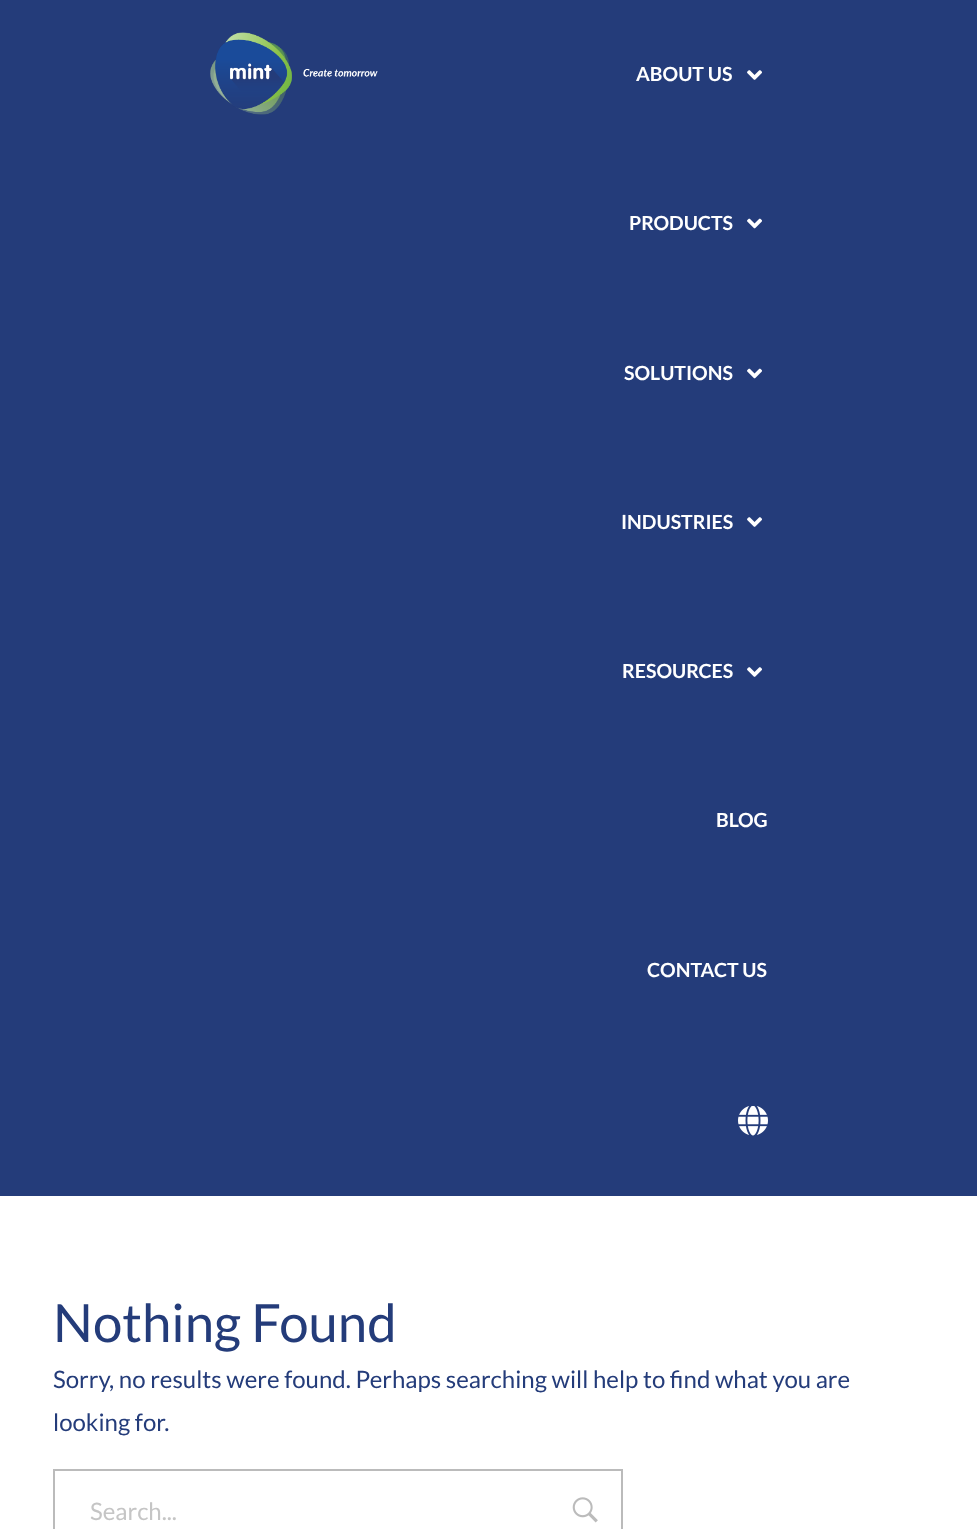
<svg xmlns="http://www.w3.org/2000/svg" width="977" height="1529">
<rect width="100%" height="100%" fill="#fff"/>
<rect width="977" height="1196" fill="#243c7a"/>
<image x="210" y="32" width="168" height="83" href="media/1.png"/>
<text x="636" y="81" style="font-family:Lato;font-size:19.5px;font-weight:bold;fill:#fff">ABOUT US</text>
<image x="747" y="70" width="15" height="10" href="media/2.png"/>
<text x="629" y="230" style="font-family:Lato;font-size:19.5px;font-weight:bold;fill:#fff">PRODUCTS</text>
<image x="747" y="218" width="15" height="11" href="media/3.png"/>
<text x="624" y="380" style="font-family:Lato;font-size:19.5px;font-weight:bold;fill:#fff">SOLUTIONS</text>
<image x="747" y="368" width="15" height="11" href="media/3.png"/>
<text x="621" y="529" style="font-family:Lato;font-size:19.5px;font-weight:bold;fill:#fff">INDUSTRIES</text>
<image x="747" y="517" width="15" height="10" href="media/2.png"/>
<text x="622" y="678" style="font-family:Lato;font-size:19.5px;font-weight:bold;fill:#fff">RESOURCES</text>
<image x="747" y="667" width="15" height="10" href="media/2.png"/>
<text x="716" y="827" style="font-family:Lato;font-size:19.5px;font-weight:bold;fill:#fff">BLOG</text>
<text x="647" y="977" style="font-family:Lato;font-size:19.5px;font-weight:bold;fill:#fff">CONTACT US</text>
<image x="738" y="1106" width="30" height="30" href="media/4.png"/>
<text x="53" y="1342" style="font-family:Lato;font-size:52.75px;fill:#243c7a">Nothing Found</text>
<text x="53" y="1388" style="font-family:Lato;font-size:24px;fill:#243c7a">Sorry, no results were found. Perhaps searching will help to find what you are</text>
<text x="53" y="1431" style="font-family:Lato;font-size:24px;fill:#243c7a">looking for.</text>
<rect x="54" y="1470" width="568" height="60" fill="none" stroke="#bbb" stroke-width="2"/>
<text x="90" y="1520" style="font-family:Lato;font-size:24px;fill:#c5c5c5">Search...</text>
<image x="572" y="1497" width="26" height="26" href="media/5.png"/>
</svg>
